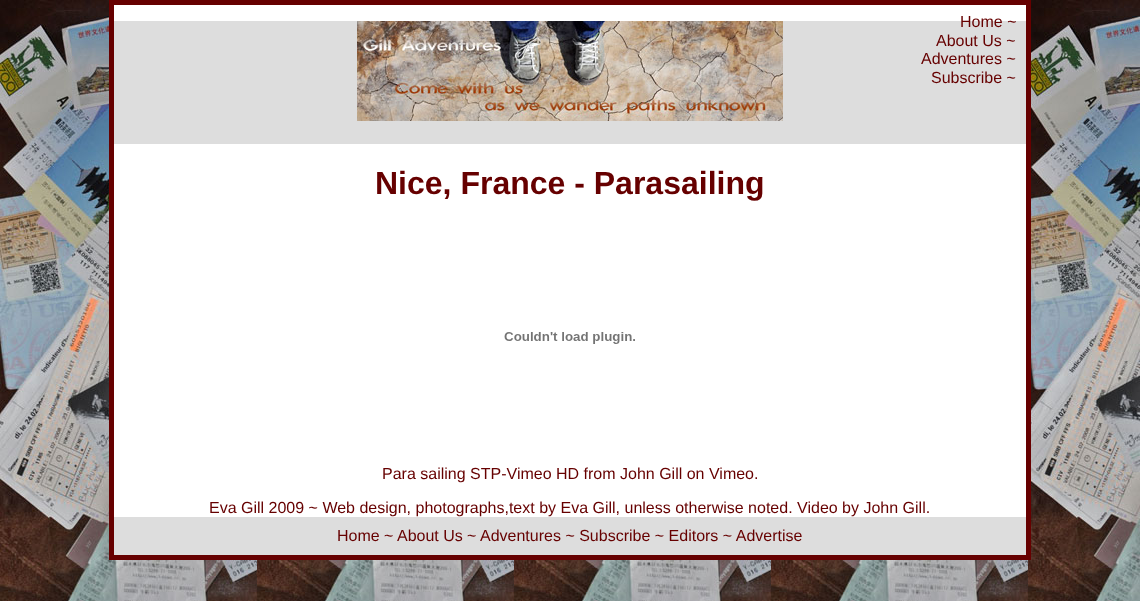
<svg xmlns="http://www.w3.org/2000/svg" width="1140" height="601">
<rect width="100%" height="100%" fill="#fff"/>
<image x="0" y="0" width="1140" height="601" href="media/1.png"/>
<rect x="114" y="5" width="912" height="512" fill="#fff"/>
<rect x="111.5" y="2.5" width="917" height="555" fill="none" stroke="#600" stroke-width="5"/>
<rect x="114" y="21" width="912" height="123" fill="#ddd"/>
<image x="357" y="21" width="426" height="100" href="media/2.png"/>
<text x="960" y="27" style="font-family:Liberation Sans;font-size:16px;fill:#600">Home ~</text>
<text x="936" y="46" style="font-family:Liberation Sans;font-size:16px;fill:#600">About Us ~</text>
<text x="921" y="64" style="font-family:Liberation Sans;font-size:16px;fill:#600">Adventures ~</text>
<text x="931" y="83" style="font-family:Liberation Sans;font-size:16px;fill:#600">Subscribe ~</text>
<text x="375" y="194" style="font-family:Liberation Sans;font-size:32px;font-weight:bold;fill:#600">Nice, France - Parasailing</text>
<image x="504" y="332" width="131" height="12" href="media/3.png"/>
<text x="382" y="479" style="font-family:Liberation Sans;font-size:16px;fill:#600">Para sailing STP-Vimeo HD from John Gill on Vimeo.</text>
<text x="209" y="513" style="font-family:Liberation Sans;font-size:16px;fill:#600">Eva Gill 2009 ~ Web design, photographs,text by Eva Gill, unless otherwise noted. Video by John Gill.</text>
<rect x="114" y="517" width="912" height="38" fill="#ddd"/>
<text x="337" y="541" style="font-family:Liberation Sans;font-size:16px;fill:#600">Home</text>
<text x="384" y="541" style="font-family:Liberation Sans;font-size:16px;fill:#600">~</text>
<text x="397" y="541" style="font-family:Liberation Sans;font-size:16px;fill:#600">About Us</text>
<text x="467" y="541" style="font-family:Liberation Sans;font-size:16px;fill:#600">~</text>
<text x="480" y="541" style="font-family:Liberation Sans;font-size:16px;fill:#600">Adventures ~ Subscribe ~ Editors ~ Advertise</text>
</svg>
